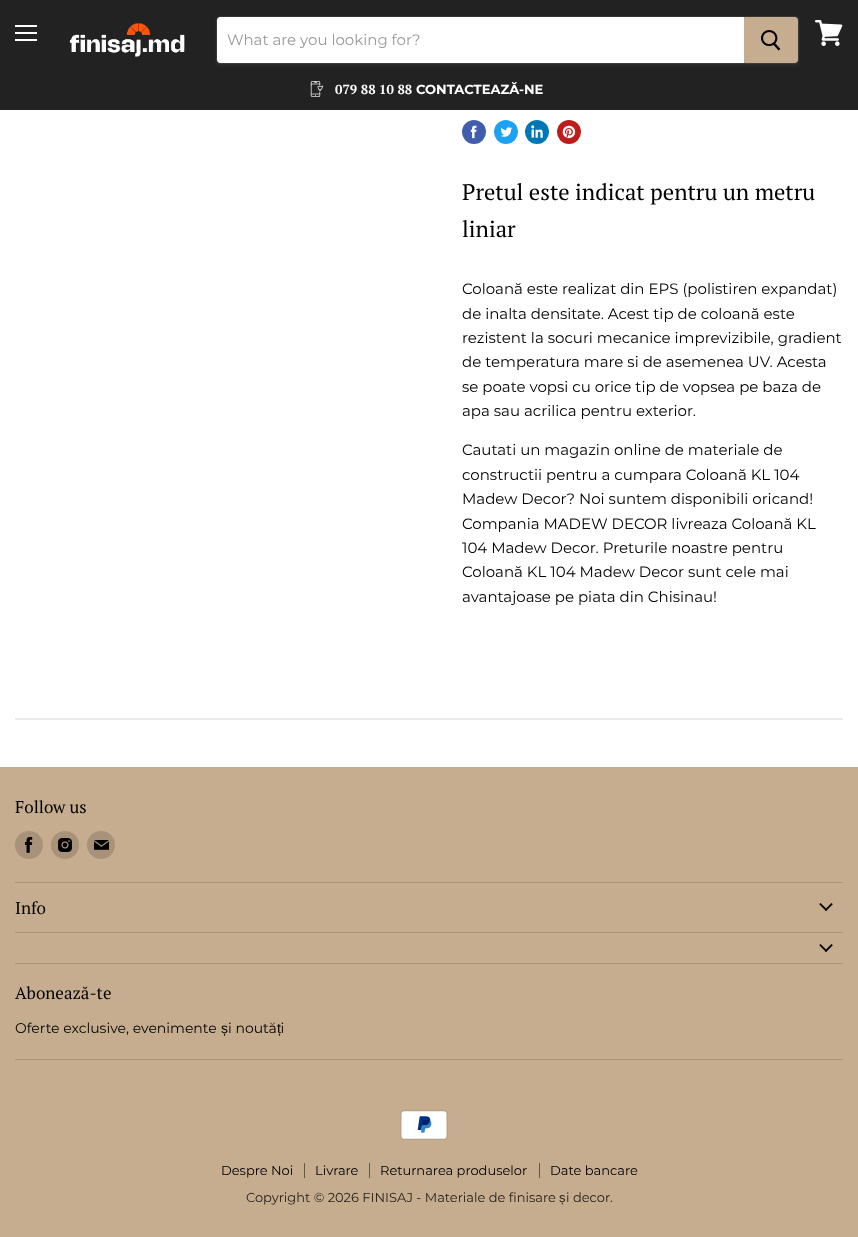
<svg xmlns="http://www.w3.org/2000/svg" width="858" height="1237">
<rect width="100%" height="100%" fill="#fff"/>
<rect width="858" height="110" fill="#222"/>
<rect x="15" y="25" width="22" height="2" fill="#fff"/>
<rect x="15" y="32" width="22" height="2" fill="#fff"/>
<rect x="15" y="39" width="22" height="2" fill="#fff"/>
<image x="69" y="23" width="116" height="34" href="media/1.png"/>
<rect x="216" y="18" width="583" height="48" rx="4" fill="#8080801c" filter="blur(1.5px)"/>
<rect x="216.5" y="16.5" width="582" height="47" rx="3.5" fill="none" stroke="#80808033"/>
<path d="M220 17h524v46h-524c-1.5 0-3-1.5-3-3v-40c0-1.5 1.5-3 3-3z" fill="#fff"/>
<text x="227" y="45" style="font-family:Montserrat;font-size:15px;fill:#999">What are you looking for?</text>
<path d="M744.5 17.5h50.5c1.5 0 2.5 1 2.5 2.5v40c0 1.5-1 2.5-2.5 2.5h-50.5z" fill="#c6ad8f" stroke="#c6ad8f"/>
<image x="761" y="30" width="20" height="21" href="media/2.png"/>
<image x="310" y="81" width="14" height="16" href="media/3.png"/>
<text x="335" y="94" style="font-family:PT Serif;font-size:13.1px;font-weight:bold;fill:#fff">079 88 10 88</text>
<text x="416" y="94" style="font-family:Montserrat;font-size:13.1px;font-weight:bold;fill:#fff">CONTACTEAZĂ-NE</text>
<image x="815" y="20" width="28" height="26" href="media/4.png"/>
<circle cx="474" cy="132" r="12" fill="#425dab"/>
<image x="470" y="125" width="7" height="14" href="media/5.png"/>
<circle cx="506" cy="132" r="12" fill="#1da1f2"/>
<image x="500" y="127" width="13" height="10" href="media/6.png"/>
<circle cx="537" cy="132" r="12" fill="#0077b5"/>
<image x="531" y="125" width="12" height="13" href="media/7.png"/>
<circle cx="569" cy="132" r="12" fill="#bd1c1c"/>
<image x="562" y="125" width="14" height="14" href="media/8.png"/>
<text x="462" y="200" style="font-family:PT Serif;font-size:22.5px;fill:#000">Pretul este indicat pentru un metru</text>
<text x="462" y="237" style="font-family:PT Serif;font-size:22.5px;fill:#000">liniar</text>
<text x="462" y="294" style="font-family:Montserrat;font-size:15px;fill:#000">Coloană este realizat din EPS (polistiren expandat)</text>
<text x="462" y="319" style="font-family:Montserrat;font-size:15px;fill:#000">de inalta densitate. Acest tip de coloană este</text>
<text x="462" y="343" style="font-family:Montserrat;font-size:15px;fill:#000">rezistent la socuri mecanice imprevizibile, gradient</text>
<text x="462" y="367" style="font-family:Montserrat;font-size:15px;fill:#000">de temperatura mare si de asemenea UV. Acesta</text>
<text x="462" y="392" style="font-family:Montserrat;font-size:15px;fill:#000">se poate vopsi cu orice tip de vopsea pe baza de</text>
<text x="462" y="416" style="font-family:Montserrat;font-size:15px;fill:#000">apa sau acrilica pentru exterior.</text>
<text x="462" y="455" style="font-family:Montserrat;font-size:15px;fill:#000">Cautati un magazin online de materiale de</text>
<text x="462" y="480" style="font-family:Montserrat;font-size:15px;fill:#000">constructii pentru a cumpara Coloană KL 104</text>
<text x="462" y="504" style="font-family:Montserrat;font-size:15px;fill:#000">Madew Decor? Noi suntem disponibili oricand!</text>
<text x="462" y="529" style="font-family:Montserrat;font-size:15px;fill:#000">Compania MADEW DECOR livreaza Coloană KL</text>
<text x="462" y="553" style="font-family:Montserrat;font-size:15px;fill:#000">104 Madew Decor. Preturile noastre pentru</text>
<text x="462" y="577" style="font-family:Montserrat;font-size:15px;fill:#000">Coloană KL 104 Madew Decor sunt cele mai</text>
<text x="462" y="602" style="font-family:Montserrat;font-size:15px;fill:#000">avantajoase pe piata din Chisinau!</text>
<rect x="15" y="718" width="828" height="2" fill="#ebebeb"/>
<rect y="767" width="858" height="470" fill="#c6ad8f"/>
<rect x="15" y="882" width="828" height="1" fill="#a8937a"/>
<text x="15" y="813" style="font-family:PT Serif;font-size:17px;fill:#000">Follow us</text>
<circle cx="29" cy="845" r="14" fill="#a8937a"/>
<image x="25" y="837" width="8" height="16" href="media/9.png"/>
<circle cx="65" cy="845" r="14" fill="#a8937a"/>
<image x="58" y="838" width="14" height="14" href="media/10.png"/>
<circle cx="101" cy="845" r="14" fill="#a8937a"/>
<image x="94" y="840" width="15" height="10" href="media/11.png"/>
<rect x="15" y="932" width="828" height="1" fill="#a8937a"/>
<text x="15" y="914" style="font-family:PT Serif;font-size:17px;fill:#000">Info</text>
<image x="819" y="903" width="14" height="8" href="media/12.png"/>
<rect x="15" y="963" width="828" height="1" fill="#a8937a"/>
<image x="819" y="944" width="14" height="8" href="media/12.png"/>
<rect x="15" y="1059" width="828" height="1" fill="#a8937a"/>
<text x="15" y="999" style="font-family:PT Serif;font-size:17px;fill:#000">Abonează-te</text>
<text x="15" y="1033" style="font-family:Montserrat;font-size:14px;fill:#000">Oferte exclusive, evenimente</text>
<text x="228" y="1033" style="font-family:Montserrat;font-size:14px;fill:#000">i noută i</text>
<text x="221" y="1033" style="font-family:Liberation Sans;font-size:14px;fill:#000">ș</text>
<text x="277" y="1033" style="font-family:Liberation Sans;font-size:14px;fill:#000">ț</text>
<image x="400" y="1110" width="48" height="30" href="media/13.png"/>
<rect x="304" y="1163" width="1" height="15" fill="#635748"/>
<text x="221" y="1175" style="font-family:Montserrat;font-size:13px;fill:#000">Despre Noi</text>
<rect x="369" y="1163" width="1" height="15" fill="#635748"/>
<text x="315" y="1175" style="font-family:Montserrat;font-size:13px;fill:#000">Livrare</text>
<rect x="539" y="1163" width="1" height="15" fill="#635748"/>
<text x="380" y="1175" style="font-family:Montserrat;font-size:13px;fill:#000">Returnarea produselor</text>
<text x="550" y="1175" style="font-family:Montserrat;font-size:13px;fill:#000">Date bancare</text>
<text x="246" y="1202" style="font-family:Montserrat;font-size:13px;fill:#28231d">Copyright © 2026 FINISAJ - Materiale de finisare</text>
<text x="559" y="1202" style="font-family:Liberation Sans;font-size:13px;fill:#28231d">ș</text>
<text x="566" y="1202" style="font-family:Montserrat;font-size:13px;fill:#28231d">i decor.</text>
</svg>
